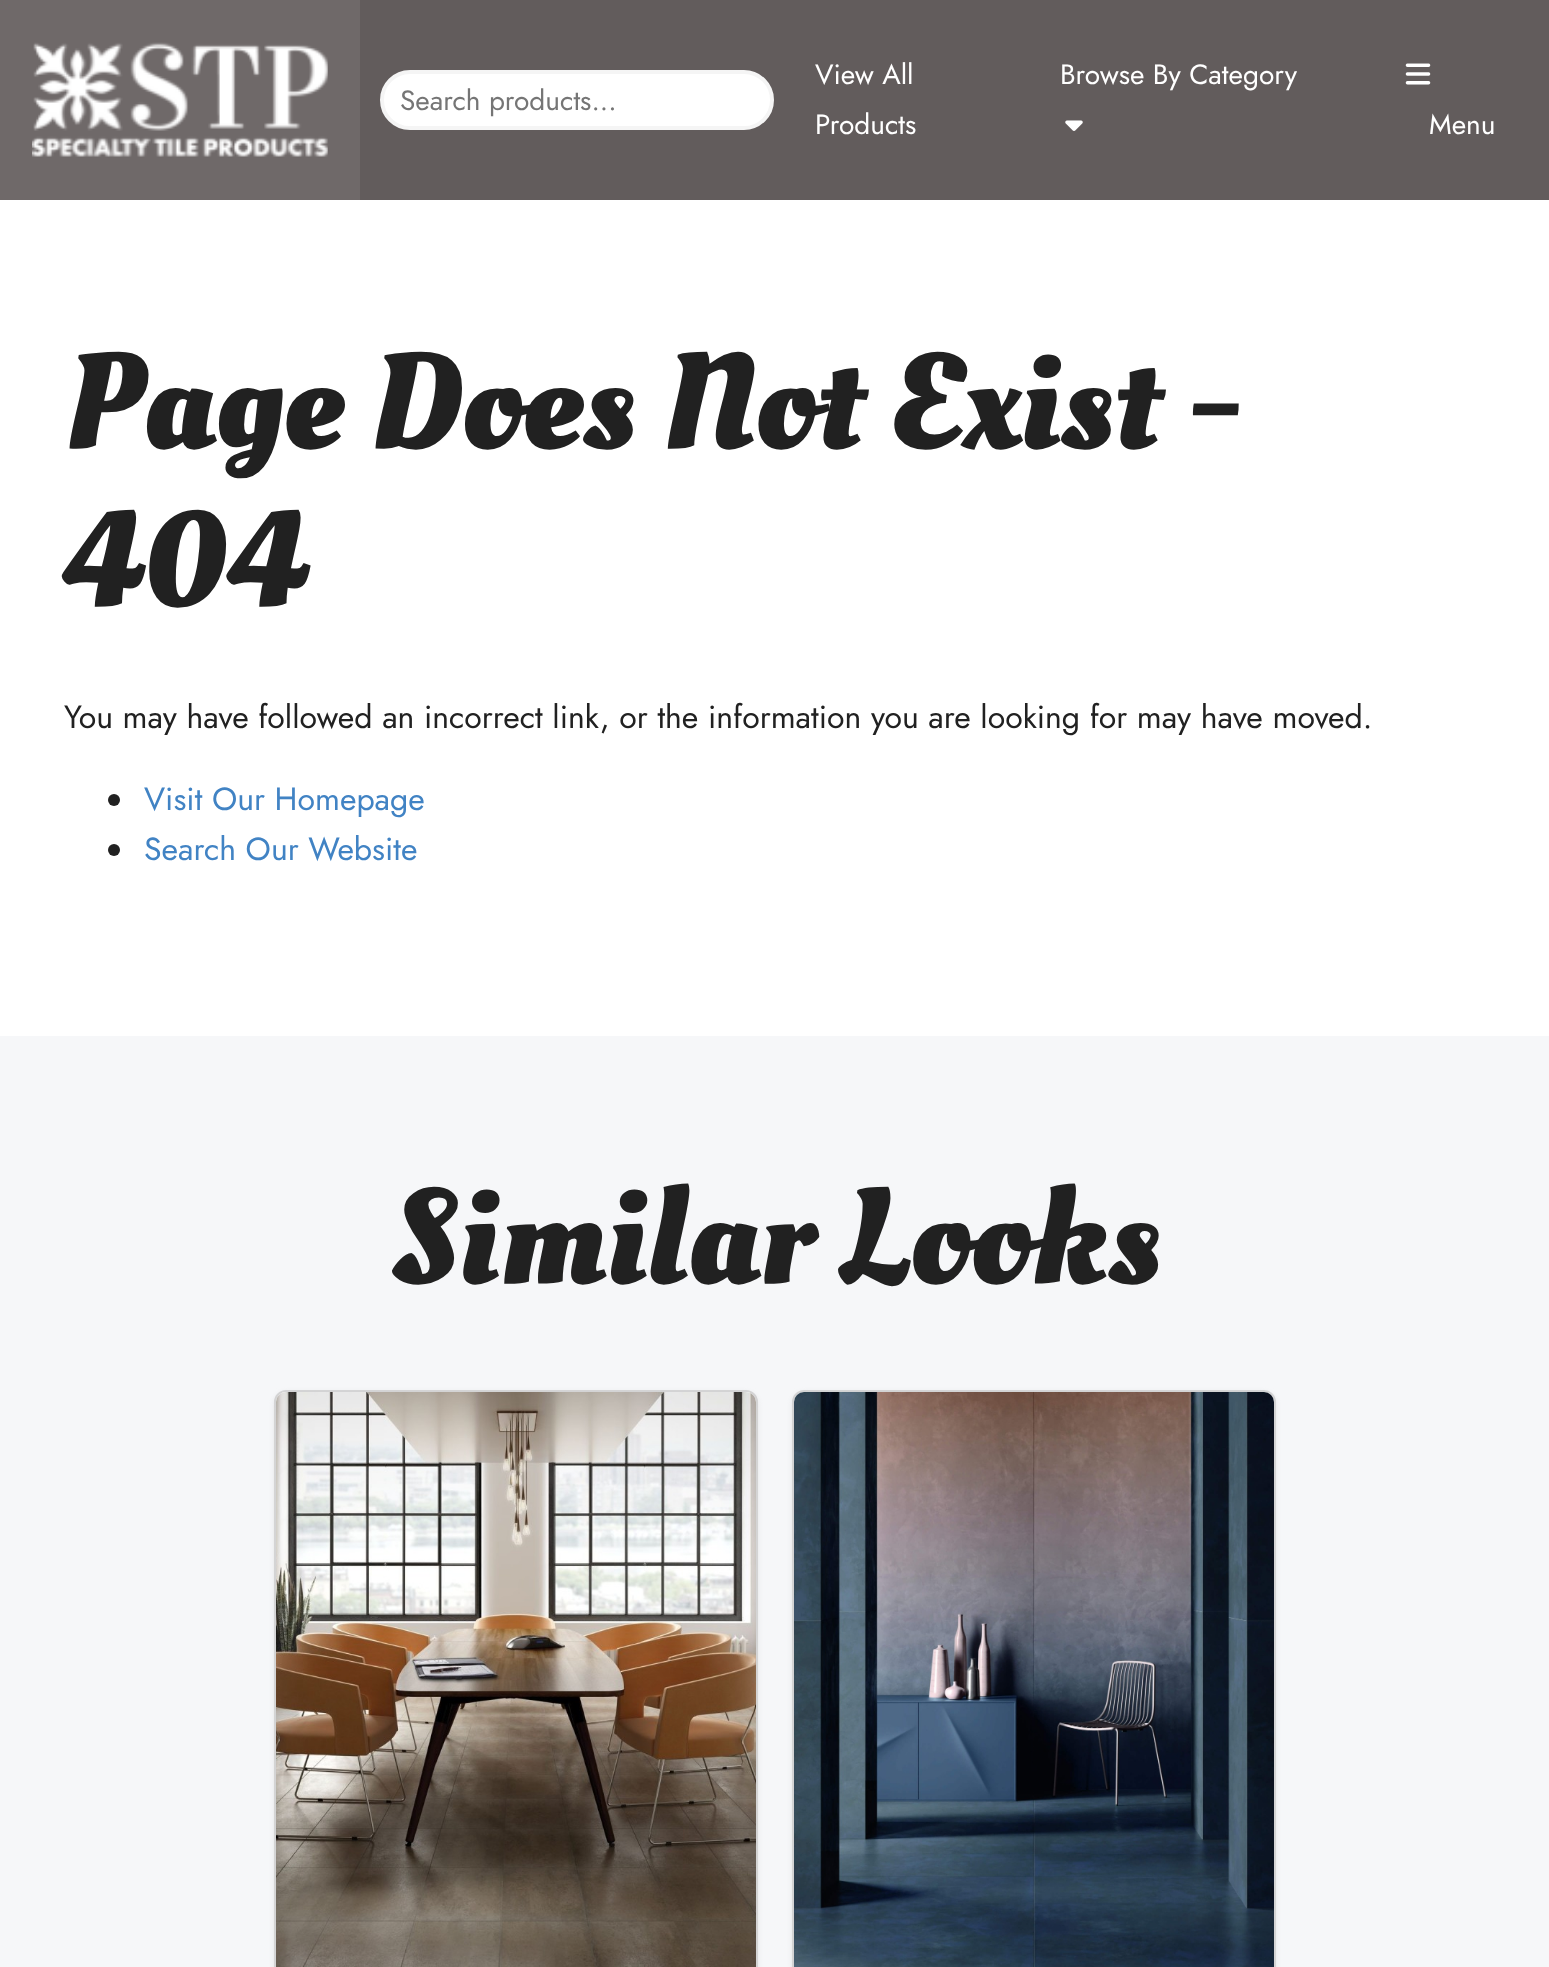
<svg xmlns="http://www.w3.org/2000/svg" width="1549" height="1967">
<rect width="100%" height="100%" fill="#fff"/>
<rect x="360" width="1189" height="200" fill="#625c5c"/>
<rect width="360" height="200" fill="#6f6969"/>
<image x="32" y="42" width="296" height="115" href="media/1.png"/>
<text x="815" y="84" style="font-family:Jost;font-size:28px;fill:#fff">View All</text>
<text x="815" y="134" style="font-family:Jost;font-size:28px;fill:#fff">Products</text>
<text x="1060" y="84" style="font-family:Jost;font-size:28px;fill:#fff">Browse By Category</text>
<image x="1065" y="120" width="18" height="11" href="media/2.png"/>
<rect x="382" y="72" width="390" height="56" rx="28" fill="#fff" stroke="#f5f5f5" stroke-width="4"/>
<text x="400" y="110" style="font-family:Jost;font-size:28px;fill:#757575">Search products...</text>
<image x="1405" y="63" width="26" height="22" href="media/3.png"/>
<text x="1429" y="134" style="font-family:Jost;font-size:28px;fill:#fff">Menu</text>
<text x="64" y="448" style="font-family:Oleo Script;font-size:135.5px;font-weight:bold;fill:#212121">Page Does Not Exist -</text>
<text x="64" y="606" style="font-family:Oleo Script;font-size:135.5px;font-weight:bold;fill:#212121">404</text>
<text x="64" y="728" style="font-family:Jost;font-size:32px;fill:#212121">You may have followed an incorrect link, or the information you are looking for may have moved.</text>
<circle cx="114" cy="800" r="6" fill="#212121"/>
<text x="144" y="810" style="font-family:Jost;font-size:32px;fill:#4183c4">Visit Our Homepage</text>
<circle cx="114" cy="850" r="6" fill="#212121"/>
<text x="144" y="860" style="font-family:Jost;font-size:32px;fill:#4183c4">Search Our Website</text>
<rect y="1036" width="1549" height="931" fill="#f6f7f9"/>
<text x="390" y="1283" style="font-family:Oleo Script;font-size:135.5px;font-weight:bold;fill:#212121">Similar Looks</text>
<rect x="275" y="1391" width="482" height="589" rx="11" fill="none" stroke="#d4d4d5" stroke-width="2"/>
<rect x="276" y="1394" width="480" height="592" rx="10" fill="#d4d4d5" filter="blur(3px)"/>
<rect x="276" y="1392" width="480" height="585" rx="10" fill="#fff"/>
<image x="276" y="1392" width="480" height="575" href="media/4.png"/>
<rect x="793" y="1391" width="482" height="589" rx="11" fill="none" stroke="#d4d4d5" stroke-width="2"/>
<rect x="794" y="1394" width="480" height="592" rx="10" fill="#d4d4d5" filter="blur(3px)"/>
<rect x="794" y="1392" width="480" height="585" rx="10" fill="#fff"/>
<image x="794" y="1392" width="480" height="575" href="media/5.png"/>
</svg>
